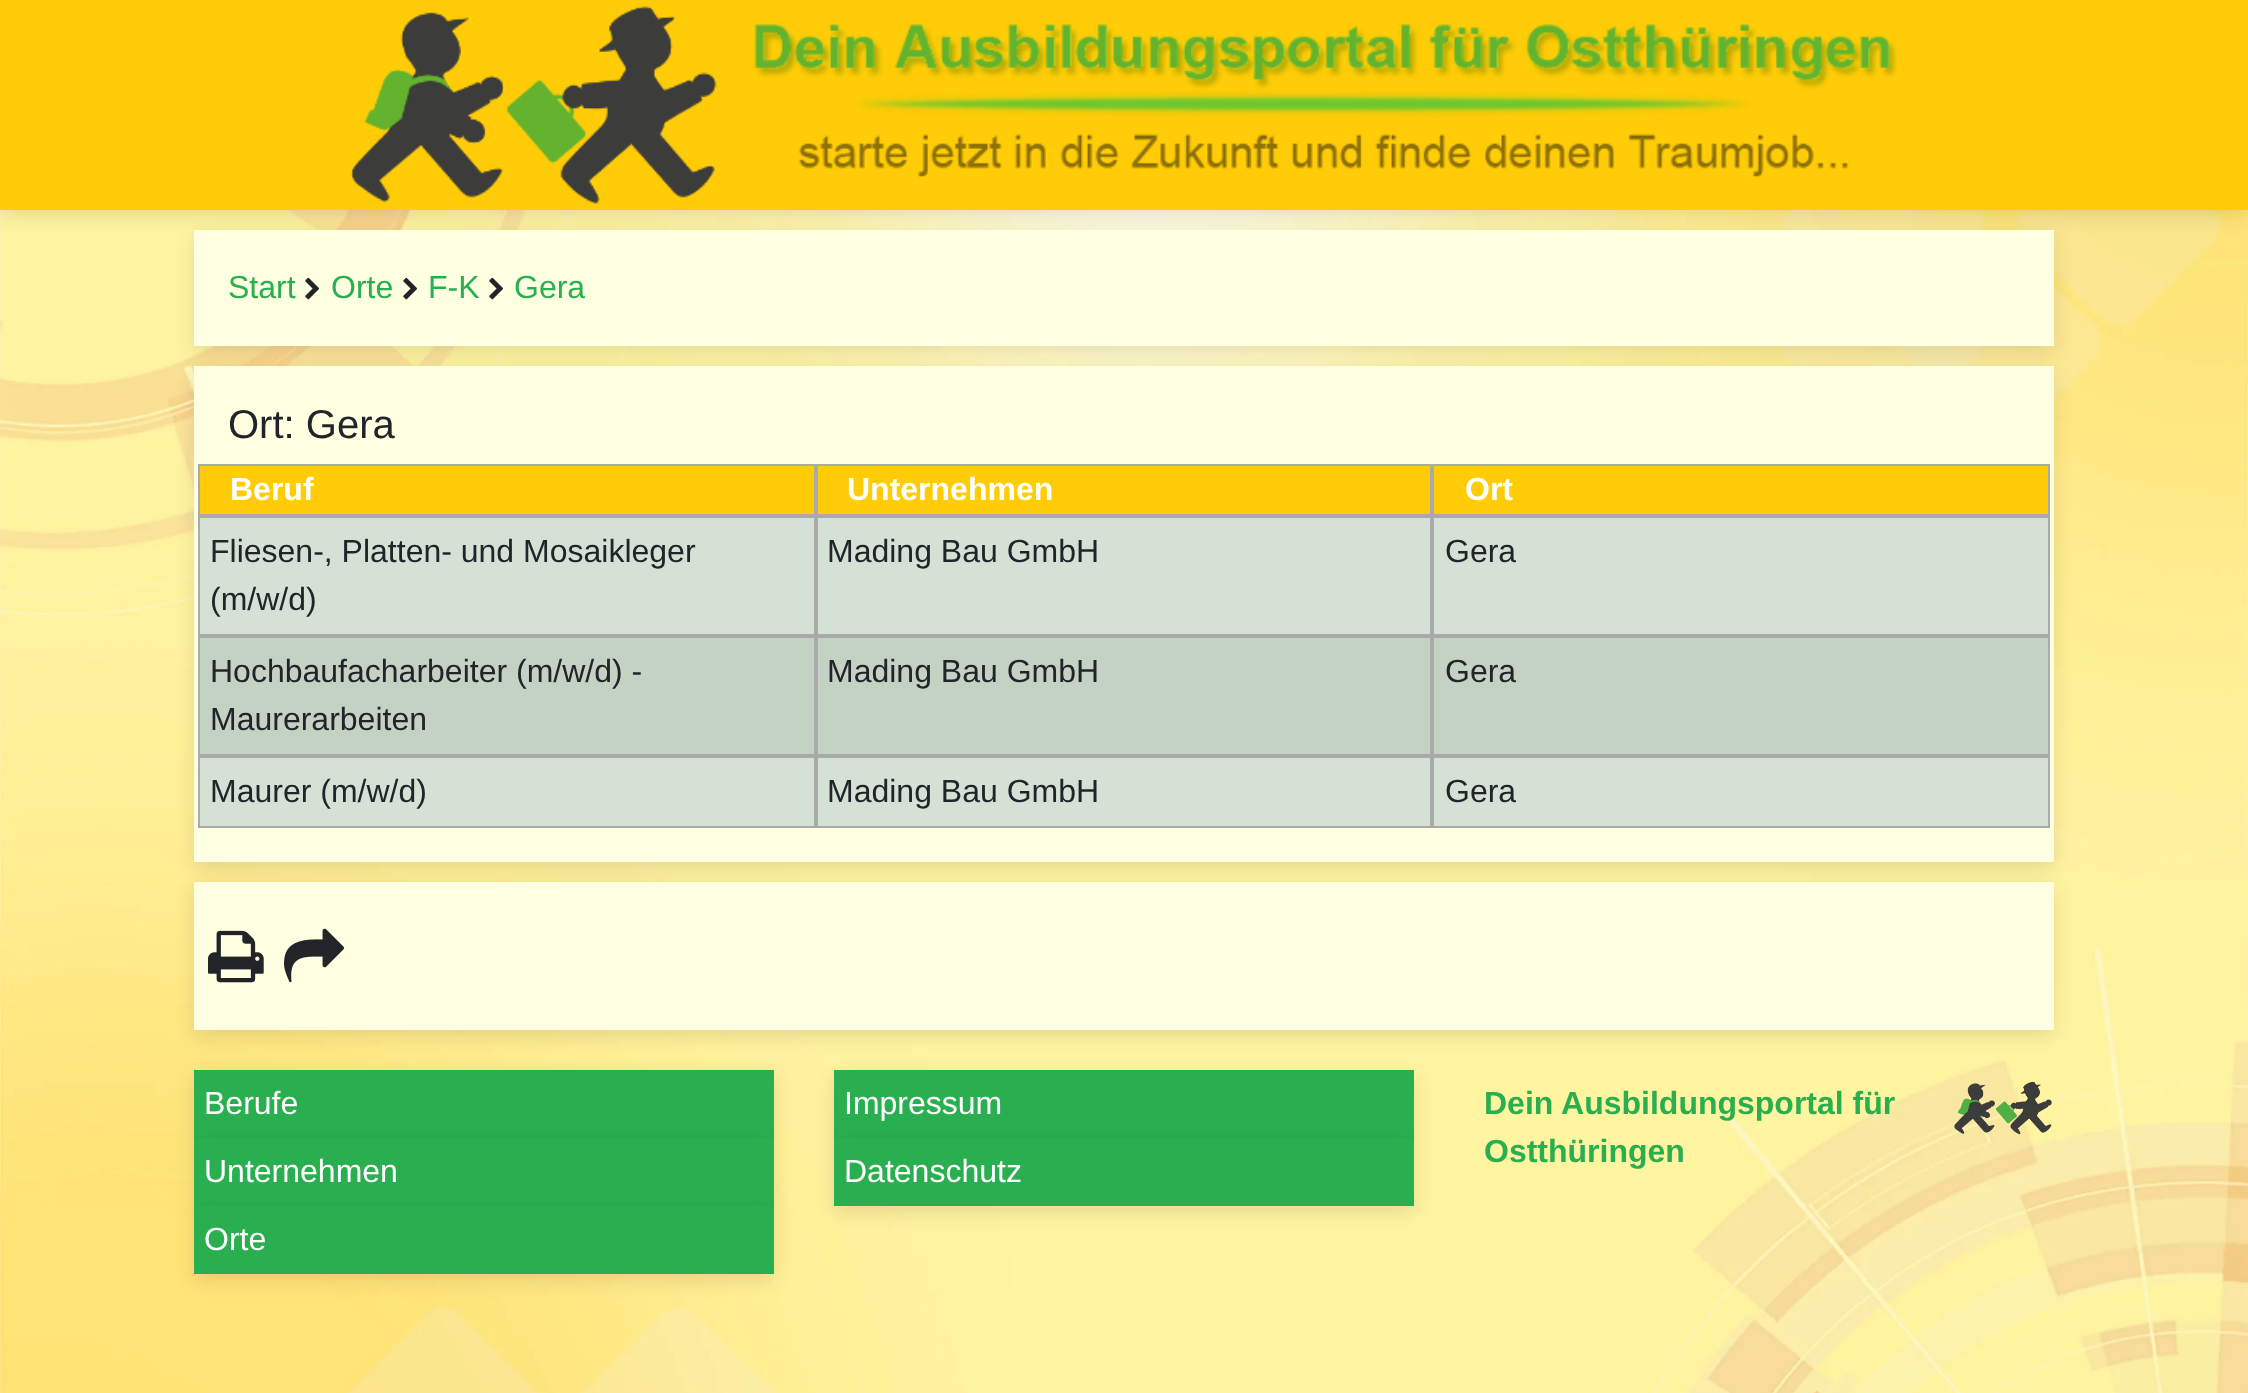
<svg xmlns="http://www.w3.org/2000/svg" width="2248" height="1393">
<rect width="100%" height="100%" fill="#fff"/>
<image x="0" y="210" width="2248" height="1183" href="media/2.png"/>
<rect y="6" width="2248" height="210" fill="#0000001a" filter="blur(10px)"/>
<rect width="2248" height="210" fill="#ffcc07"/>
<image x="350" y="6" width="1547" height="202" href="media/1.png"/>
<rect x="194" y="236" width="1860" height="116" fill="#0000001a" filter="blur(10px)"/>
<rect x="194" y="230" width="1860" height="116" fill="#ffffe1"/>
<text x="228" y="298" style="font-family:Liberation Sans;font-size:32px;fill:#29af50">Start</text>
<image x="305" y="277" width="14" height="23" href="media/3.png"/>
<text x="331" y="298" style="font-family:Liberation Sans;font-size:32px;fill:#29af50">Orte</text>
<image x="403" y="277" width="14" height="23" href="media/3.png"/>
<text x="428" y="298" style="font-family:Liberation Sans;font-size:32px;fill:#29af50">F-K</text>
<image x="489" y="277" width="14" height="23" href="media/3.png"/>
<text x="514" y="298" style="font-family:Liberation Sans;font-size:32px;fill:#29af50">Gera</text>
<rect x="194" y="372" width="1860" height="496" fill="#0000001a" filter="blur(10px)"/>
<rect x="194" y="366" width="1860" height="496" fill="#ffffe1"/>
<text x="228" y="438" style="font-family:Liberation Sans;font-size:40px;fill:#212529">Ort: Gera</text>
<rect x="199" y="465" width="616" height="50" fill="#ffcc07" stroke="#aaa" stroke-width="2"/>
<text x="230" y="500" style="font-family:Liberation Sans;font-size:32px;font-weight:bold;fill:#fff">Beruf</text>
<rect x="817" y="465" width="614" height="50" fill="#ffcc07" stroke="#aaa" stroke-width="2"/>
<text x="847" y="500" style="font-family:Liberation Sans;font-size:32px;font-weight:bold;fill:#fff">Unternehmen</text>
<rect x="1433" y="465" width="616" height="50" fill="#ffcc07" stroke="#aaa" stroke-width="2"/>
<text x="1465" y="500" style="font-family:Liberation Sans;font-size:32px;font-weight:bold;fill:#fff">Ort</text>
<rect x="199" y="517" width="616" height="118" fill="#d5e1d5" stroke="#aaa" stroke-width="2"/>
<text x="210" y="562" style="font-family:Liberation Sans;font-size:32px;fill:#212529">Fliesen-, Platten- und Mosaikleger</text>
<text x="210" y="610" style="font-family:Liberation Sans;font-size:32px;fill:#212529">(m/w/d)</text>
<rect x="817" y="517" width="614" height="118" fill="#d5e1d5" stroke="#aaa" stroke-width="2"/>
<text x="827" y="562" style="font-family:Liberation Sans;font-size:32px;fill:#212529">Mading Bau GmbH</text>
<rect x="1433" y="517" width="616" height="118" fill="#d5e1d5" stroke="#aaa" stroke-width="2"/>
<text x="1445" y="562" style="font-family:Liberation Sans;font-size:32px;fill:#212529">Gera</text>
<rect x="199" y="637" width="616" height="118" fill="#c4d2c4" stroke="#aaa" stroke-width="2"/>
<text x="210" y="682" style="font-family:Liberation Sans;font-size:32px;fill:#212529">Hochbaufacharbeiter (m/w/d) -</text>
<text x="210" y="730" style="font-family:Liberation Sans;font-size:32px;fill:#212529">Maurerarbeiten</text>
<rect x="817" y="637" width="614" height="118" fill="#c4d2c4" stroke="#aaa" stroke-width="2"/>
<text x="827" y="682" style="font-family:Liberation Sans;font-size:32px;fill:#212529">Mading Bau GmbH</text>
<rect x="1433" y="637" width="616" height="118" fill="#c4d2c4" stroke="#aaa" stroke-width="2"/>
<text x="1445" y="682" style="font-family:Liberation Sans;font-size:32px;fill:#212529">Gera</text>
<rect x="199" y="757" width="616" height="70" fill="#d5e1d5" stroke="#aaa" stroke-width="2"/>
<text x="210" y="802" style="font-family:Liberation Sans;font-size:32px;fill:#212529">Maurer (m/w/d)</text>
<rect x="817" y="757" width="614" height="70" fill="#d5e1d5" stroke="#aaa" stroke-width="2"/>
<text x="827" y="802" style="font-family:Liberation Sans;font-size:32px;fill:#212529">Mading Bau GmbH</text>
<rect x="1433" y="757" width="616" height="70" fill="#d5e1d5" stroke="#aaa" stroke-width="2"/>
<text x="1445" y="802" style="font-family:Liberation Sans;font-size:32px;fill:#212529">Gera</text>
<rect x="194" y="888" width="1860" height="148" fill="#0000001a" filter="blur(10px)"/>
<rect x="194" y="882" width="1860" height="148" fill="#ffffe1"/>
<image x="208" y="930" width="56" height="53" href="media/4.png"/>
<image x="284" y="928" width="60" height="55" href="media/5.png"/>
<rect x="194" y="1076" width="580" height="68" fill="#0000001a" filter="blur(10px)"/>
<rect x="194" y="1070" width="580" height="68" fill="#29af50"/>
<rect x="194" y="1144" width="580" height="68" fill="#0000001a" filter="blur(10px)"/>
<text x="204" y="1114" style="font-family:Liberation Sans;font-size:32px;fill:#fff">Berufe</text>
<rect x="194" y="1138" width="580" height="68" fill="#29af50"/>
<rect x="194" y="1212" width="580" height="68" fill="#0000001a" filter="blur(10px)"/>
<text x="204" y="1182" style="font-family:Liberation Sans;font-size:32px;fill:#fff">Unternehmen</text>
<rect x="194" y="1206" width="580" height="68" fill="#29af50"/>
<text x="204" y="1250" style="font-family:Liberation Sans;font-size:32px;fill:#fff">Orte</text>
<rect x="834" y="1076" width="580" height="68" fill="#0000001a" filter="blur(10px)"/>
<rect x="834" y="1070" width="580" height="68" fill="#29af50"/>
<rect x="834" y="1144" width="580" height="68" fill="#0000001a" filter="blur(10px)"/>
<text x="844" y="1114" style="font-family:Liberation Sans;font-size:32px;fill:#fff">Impressum</text>
<rect x="834" y="1138" width="580" height="68" fill="#29af50"/>
<text x="844" y="1182" style="font-family:Liberation Sans;font-size:32px;fill:#fff">Datenschutz</text>
<text x="1484" y="1114" style="font-family:Liberation Sans;font-size:32px;font-weight:bold;fill:#29af50">Dein Ausbildungsportal für</text>
<text x="1484" y="1162" style="font-family:Liberation Sans;font-size:32px;font-weight:bold;fill:#29af50">Ostthüringen</text>
<image x="1954" y="1081" width="98" height="54" href="media/6.png"/>
</svg>
